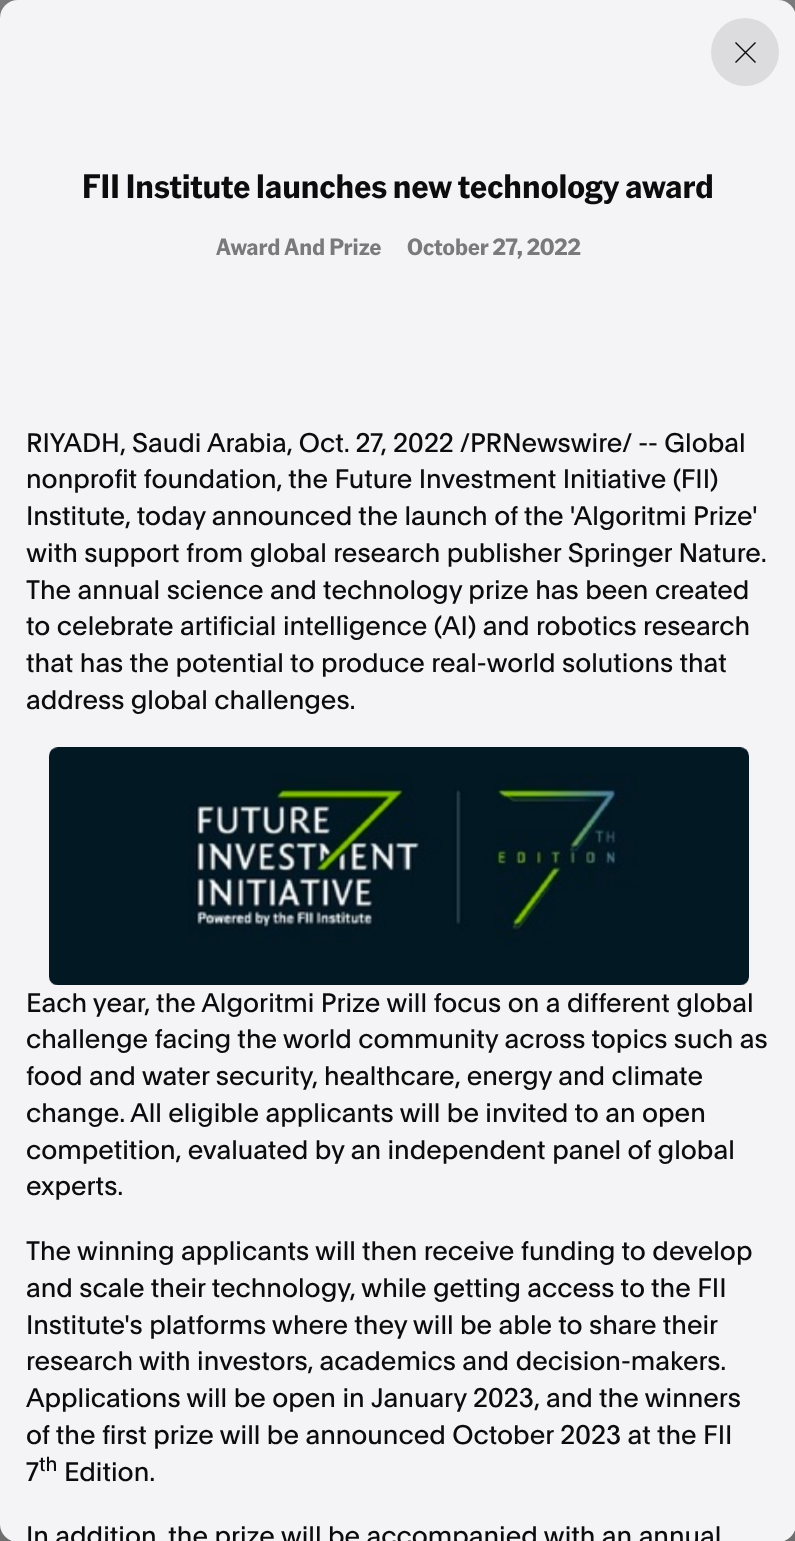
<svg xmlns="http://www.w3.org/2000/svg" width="795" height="1541">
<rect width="100%" height="100%" fill="#7a7a7c"/>
<rect y="1524" width="795" height="17" fill="#6e6e6f"/>
<rect width="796" height="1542" rx="18" fill="#f4f4f7"/>
<circle cx="745" cy="52" r="34" fill="#dcdcde"/>
<path d="M755.5 42.5l-20 20m20 0l-20-20" fill="none" stroke="#0c0c0c" stroke-width="1.4" stroke-linejoin="round"/>
<text x="82" y="198" style="font-family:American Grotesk;font-size:32.8px;font-weight:bold;fill:#0c0c0c">FII Institute launches new technology award</text>
<text x="216" y="255" style="font-family:American Grotesk;font-size:22.75px;font-weight:bold;fill:#7a7a7c">Award And Prize</text>
<text x="407" y="255" style="font-family:American Grotesk;font-size:22.75px;font-weight:bold;fill:#7a7a7c">October 27, 2022</text>
<text x="26" y="452" style="font-family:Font;font-size:26.25px;fill:#0c0c0c">RIYADH, Saudi Arabia, Oct. 27, 2022</text>
<text x="460" y="452" style="font-family:Font;font-size:26.25px;fill:#0c0c0c">/PRNewswire/ -- Global</text>
<text x="26" y="488" style="font-family:Font;font-size:26.25px;fill:#0c0c0c">nonprofit foundation, the Future Investment Initiative (FII)</text>
<text x="26" y="525" style="font-family:Font;font-size:26.25px;fill:#0c0c0c">Institute, today announced the launch of the 'Algoritmi Prize'</text>
<text x="26" y="562" style="font-family:Font;font-size:26.25px;fill:#0c0c0c">with support from global research publisher Springer Nature.</text>
<text x="26" y="599" style="font-family:Font;font-size:26.25px;fill:#0c0c0c">The annual science and technology prize has been created</text>
<text x="26" y="635" style="font-family:Font;font-size:26.25px;fill:#0c0c0c">to celebrate artificial intelligence (AI) and robotics research</text>
<text x="26" y="672" style="font-family:Font;font-size:26.25px;fill:#0c0c0c">that has the potential to produce real-world solutions that</text>
<text x="26" y="709" style="font-family:Font;font-size:26.25px;fill:#0c0c0c">address global challenges.</text>
<image x="49" y="747" width="700" height="238" href="media/1.png"/>
<text x="26" y="1012" style="font-family:Font;font-size:26.25px;fill:#0c0c0c">Each year, the Algoritmi Prize will focus on a different global</text>
<text x="26" y="1048" style="font-family:Font;font-size:26.25px;fill:#0c0c0c">challenge facing the world community across topics such as</text>
<text x="26" y="1085" style="font-family:Font;font-size:26.25px;fill:#0c0c0c">food and water security, healthcare, energy and climate</text>
<text x="26" y="1122" style="font-family:Font;font-size:26.25px;fill:#0c0c0c">change. All eligible applicants will be invited to an open</text>
<text x="26" y="1159" style="font-family:Font;font-size:26.25px;fill:#0c0c0c">competition, evaluated by an independent panel of global</text>
<text x="26" y="1195" style="font-family:Font;font-size:26.25px;fill:#0c0c0c">experts.</text>
<text x="26" y="1260" style="font-family:Font;font-size:26.25px;fill:#0c0c0c">The winning applicants will then receive funding to develop</text>
<text x="26" y="1297" style="font-family:Font;font-size:26.25px;fill:#0c0c0c">and scale their technology, while getting access to the FII</text>
<text x="26" y="1334" style="font-family:Font;font-size:26.25px;fill:#0c0c0c">Institute's platforms where they will be able to share their</text>
<text x="26" y="1370" style="font-family:Font;font-size:26.25px;fill:#0c0c0c">research with investors, academics and decision-makers.</text>
<text x="26" y="1407" style="font-family:Font;font-size:26.25px;fill:#0c0c0c">Applications will be open in</text>
<text x="371" y="1407" style="font-family:Font;font-size:26.25px;fill:#0c0c0c">January 2023, and the winners</text>
<text x="26" y="1444" style="font-family:Font;font-size:26.25px;fill:#0c0c0c">of the first prize will be announced October 2023 at the FII</text>
<text x="26" y="1481" style="font-family:Font;font-size:26.25px;fill:#0c0c0c">7</text>
<text x="39" y="1471" style="font-family:Font;font-size:20px;fill:#0c0c0c">th</text>
<text x="64" y="1481" style="font-family:Font;font-size:26.25px;fill:#0c0c0c">Edition.</text>
<text x="26" y="1545" style="font-family:Font;font-size:26.25px;fill:#0c0c0c">In addition, the prize will be accompanied with an annual</text>
</svg>
